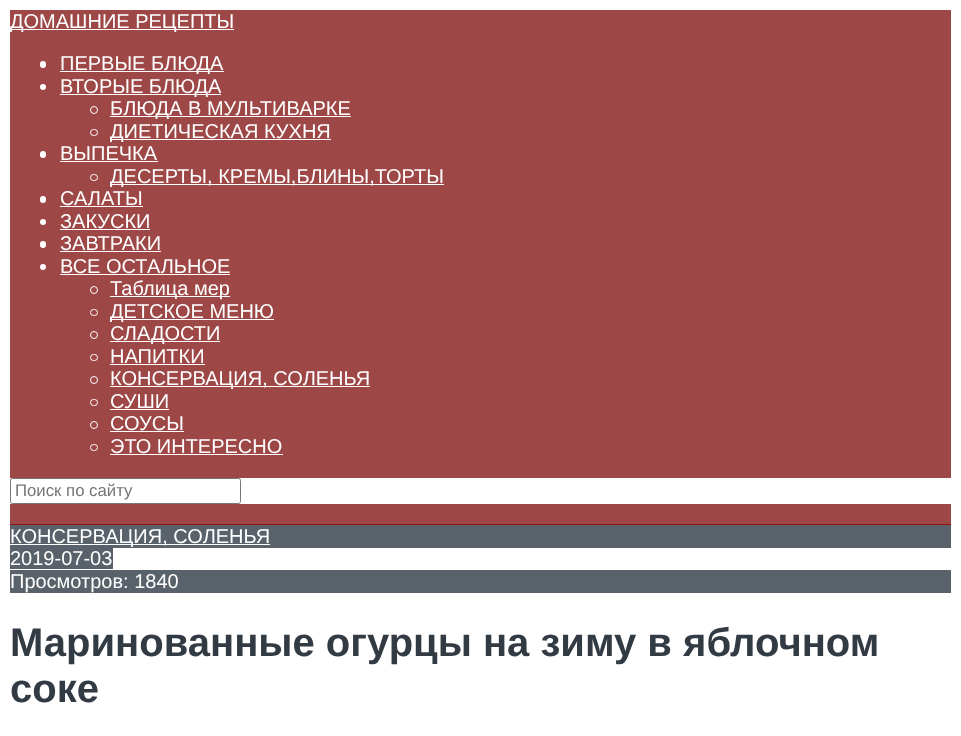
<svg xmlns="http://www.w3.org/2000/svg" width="961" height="736">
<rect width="100%" height="100%" fill="#fff"/>
<rect x="10" y="10" width="941" height="514" fill="#9e4747"/>
<rect x="10" y="524" width="941" height="1" fill="#93110e"/>
<rect x="10" y="29" width="224" height="1" fill="#fff"/>
<text x="10" y="28" style="font-family:Liberation Sans;font-size:20px;fill:#fff">ДОМАШНИЕ РЕЦЕПТЫ</text>
<rect x="40" y="61" width="6" height="7" rx="3" fill="#fff"/>
<rect x="60" y="71" width="164" height="1" fill="#fff"/>
<text x="60" y="70" style="font-family:Liberation Sans;font-size:20px;fill:#fff">ПЕРВЫЕ БЛЮДА</text>
<circle cx="43" cy="87" r="3" fill="#fff"/>
<rect x="60" y="94" width="161" height="1" fill="#fff"/>
<text x="60" y="93" style="font-family:Liberation Sans;font-size:20px;fill:#fff">ВТОРЫЕ БЛЮДА</text>
<circle cx="94" cy="110" r="3.5" fill="none" stroke="#fff"/>
<rect x="110" y="116" width="241" height="1" fill="#fff"/>
<text x="110" y="115" style="font-family:Liberation Sans;font-size:20px;fill:#fff">БЛЮДА В МУЛЬТИВАРКЕ</text>
<rect x="90.5" y="129.5" width="7" height="6" rx="3" fill="none" stroke="#fff"/>
<rect x="110" y="139" width="221" height="1" fill="#fff"/>
<text x="110" y="138" style="font-family:Liberation Sans;font-size:20px;fill:#fff">ДИЕТИЧЕСКАЯ КУХНЯ</text>
<rect x="40" y="151" width="6" height="7" rx="3" fill="#fff"/>
<text x="60" y="160" style="font-family:Liberation Sans;font-size:20px;fill:#fff">ВЫПЕЧКА</text>
<rect x="60" y="161" width="98" height="1" fill="#fff"/>
<rect x="90.5" y="174.5" width="7" height="6" rx="3" fill="none" stroke="#fff"/>
<rect x="110" y="184" width="334" height="1" fill="#fff"/>
<text x="110" y="183" style="font-family:Liberation Sans;font-size:20px;fill:#fff">ДЕСЕРТЫ, КРЕМЫ,БЛИНЫ,ТОРТЫ</text>
<rect x="40" y="196" width="6" height="7" rx="3" fill="#fff"/>
<text x="60" y="205" style="font-family:Liberation Sans;font-size:20px;fill:#fff">САЛАТЫ</text>
<rect x="60" y="206" width="83" height="1" fill="#fff"/>
<circle cx="43" cy="222" r="3" fill="#fff"/>
<text x="60" y="228" style="font-family:Liberation Sans;font-size:20px;fill:#fff">ЗАКУСКИ</text>
<rect x="60" y="229" width="90" height="1" fill="#fff"/>
<rect x="40" y="241" width="6" height="7" rx="3" fill="#fff"/>
<text x="60" y="250" style="font-family:Liberation Sans;font-size:20px;fill:#fff">ЗАВТРАКИ</text>
<rect x="60" y="251" width="101" height="1" fill="#fff"/>
<circle cx="43" cy="267" r="3" fill="#fff"/>
<text x="60" y="273" style="font-family:Liberation Sans;font-size:20px;fill:#fff">ВСЕ ОСТАЛЬНОЕ</text>
<rect x="60" y="274" width="170" height="1" fill="#fff"/>
<circle cx="94" cy="290" r="3.5" fill="none" stroke="#fff"/>
<rect x="110" y="296" width="120" height="1" fill="#fff"/>
<text x="110" y="295" style="font-family:Liberation Sans;font-size:20px;fill:#fff">Таблица мер</text>
<rect x="90.5" y="309.5" width="7" height="6" rx="3" fill="none" stroke="#fff"/>
<rect x="110" y="319" width="164" height="1" fill="#fff"/>
<text x="110" y="318" style="font-family:Liberation Sans;font-size:20px;fill:#fff">ДЕТСКОЕ МЕНЮ</text>
<circle cx="94" cy="335" r="3.5" fill="none" stroke="#fff"/>
<rect x="110" y="341" width="110" height="1" fill="#fff"/>
<text x="110" y="340" style="font-family:Liberation Sans;font-size:20px;fill:#fff">СЛАДОСТИ</text>
<rect x="90.5" y="354.5" width="7" height="6" rx="3" fill="none" stroke="#fff"/>
<text x="110" y="363" style="font-family:Liberation Sans;font-size:20px;fill:#fff">НАПИТКИ</text>
<rect x="110" y="364" width="95" height="1" fill="#fff"/>
<circle cx="94" cy="380" r="3.5" fill="none" stroke="#fff"/>
<rect x="110" y="386" width="260" height="1" fill="#fff"/>
<text x="110" y="385" style="font-family:Liberation Sans;font-size:20px;fill:#fff">КОНСЕРВАЦИЯ, СОЛЕНЬЯ</text>
<rect x="90.5" y="399.5" width="7" height="6" rx="3" fill="none" stroke="#fff"/>
<text x="110" y="408" style="font-family:Liberation Sans;font-size:20px;fill:#fff">СУШИ</text>
<rect x="110" y="409" width="59" height="1" fill="#fff"/>
<circle cx="94" cy="425" r="3.5" fill="none" stroke="#fff"/>
<text x="110" y="430" style="font-family:Liberation Sans;font-size:20px;fill:#fff">СОУСЫ</text>
<rect x="110" y="431" width="74" height="1" fill="#fff"/>
<rect x="90.5" y="444.5" width="7" height="6" rx="3" fill="none" stroke="#fff"/>
<text x="110" y="453" style="font-family:Liberation Sans;font-size:20px;fill:#fff">ЭТО ИНТЕРЕСНО</text>
<rect x="110" y="454" width="173" height="1" fill="#fff"/>
<rect x="10" y="478" width="941" height="26" fill="#fff"/>
<rect x="10.5" y="478.5" width="230" height="25" rx="2" fill="none" stroke="#767676"/>
<text x="15" y="496" style="font-family:Liberation Sans;font-size:16.75px;fill:#757575">Поиск по сайту</text>
<rect x="10" y="525" width="941" height="23" fill="#59626a"/>
<rect x="10" y="544" width="260" height="1" fill="#fff"/>
<text x="10" y="543" style="font-family:Liberation Sans;font-size:20px;fill:#fff">КОНСЕРВАЦИЯ, СОЛЕНЬЯ</text>
<rect x="10" y="548" width="103" height="21" fill="#59626a"/>
<text x="10" y="565" style="font-family:Liberation Sans;font-size:20px;fill:#fff">2019-07-03</text>
<rect x="10" y="570" width="941" height="23" fill="#59626a"/>
<text x="10" y="588" style="font-family:Liberation Sans;font-size:20px;fill:#fff">Просмотров: 1840</text>
<text x="10" y="656" style="font-family:Liberation Sans;font-size:40px;font-weight:bold;fill:#323b43">Маринованные огурцы на зиму в яблочном</text>
<text x="10" y="702" style="font-family:Liberation Sans;font-size:40px;font-weight:bold;fill:#323b43">соке</text>
</svg>
